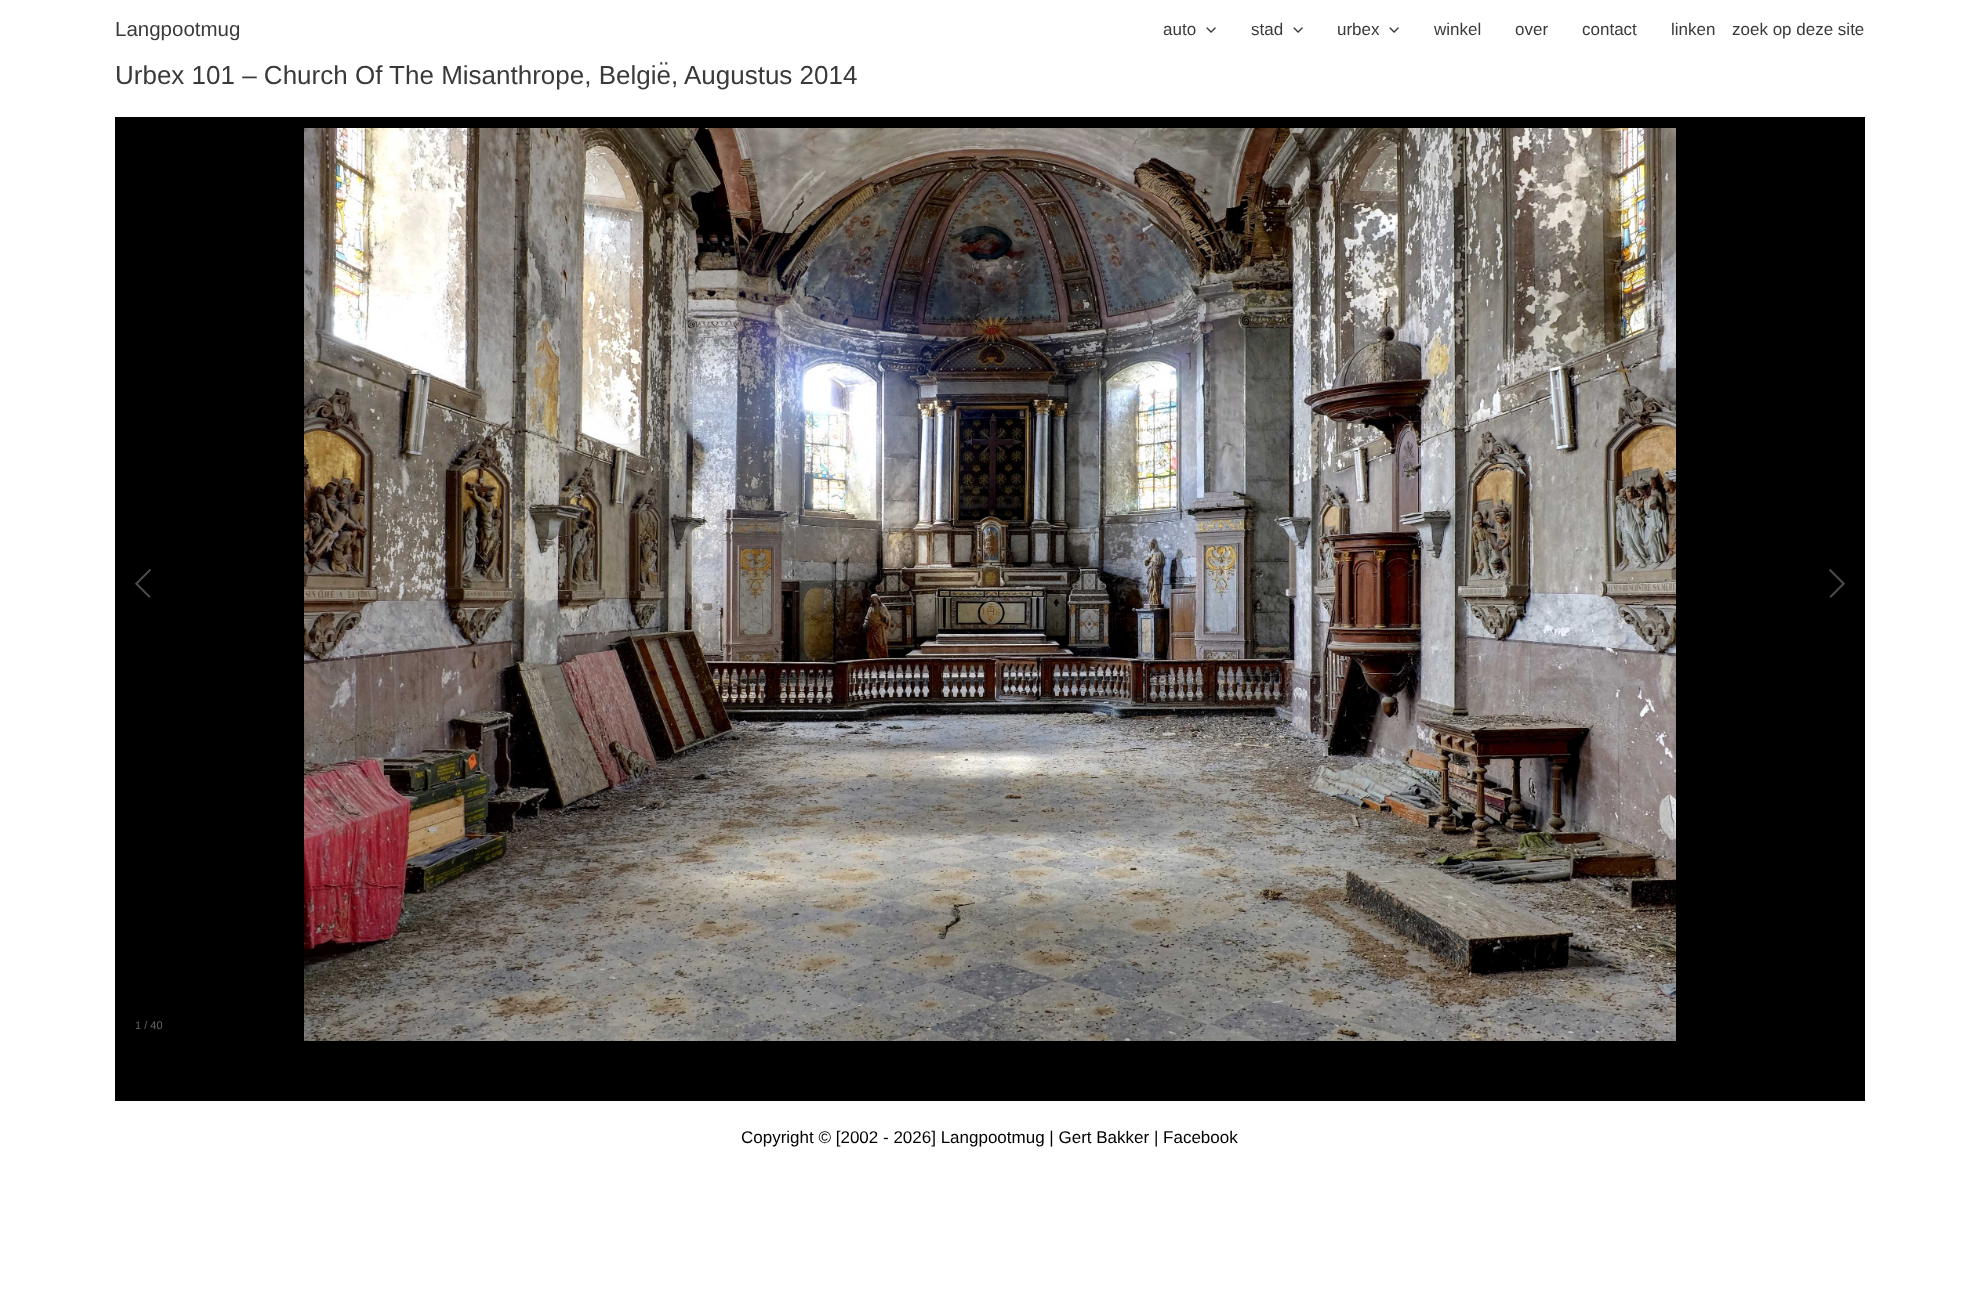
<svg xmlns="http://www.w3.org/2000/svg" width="1979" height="1294">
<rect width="100%" height="100%" fill="#fff"/>
<text x="115" y="36" style="font-family:Liberation Sans;font-size:20.5px;fill:#3a3a3a">Langpootmug</text>
<text x="1163" y="35" style="font-family:Liberation Sans;font-size:17px;fill:#3a3a3a">auto</text>
<image x="1206" y="27" width="10" height="6" href="media/1.png"/>
<text x="1251" y="35" style="font-family:Liberation Sans;font-size:17px;fill:#3a3a3a">stad</text>
<image x="1293" y="27" width="10" height="6" href="media/1.png"/>
<text x="1337" y="35" style="font-family:Liberation Sans;font-size:17px;fill:#3a3a3a">urbex</text>
<image x="1389" y="27" width="10" height="6" href="media/1.png"/>
<text x="1434" y="35" style="font-family:Liberation Sans;font-size:17px;fill:#3a3a3a">winkel</text>
<text x="1515" y="35" style="font-family:Liberation Sans;font-size:17px;fill:#3a3a3a">over</text>
<text x="1582" y="35" style="font-family:Liberation Sans;font-size:17px;fill:#3a3a3a">contact</text>
<text x="1671" y="35" style="font-family:Liberation Sans;font-size:17px;fill:#3a3a3a">linken</text>
<text x="1732" y="35" style="font-family:Liberation Sans;font-size:17px;fill:#3a3a3a">zoek op deze site</text>
<text x="115" y="84" style="font-family:Liberation Sans;font-size:26px;fill:#3a3a3a">Urbex 101 – Church Of The Misanthrope, België, Augustus 2014</text>
<rect x="115" y="117" width="1750" height="984" fill="#000"/>
<image x="304" y="128" width="1372" height="913" href="media/2.png"/>
<image x="135" y="569" width="16" height="29" href="media/3.png"/>
<image x="1829" y="569" width="16" height="29" href="media/4.png"/>
<text x="135" y="1029" style="font-family:Liberation Sans;font-size:11px;fill:#666">1 / 40</text>
<text x="741" y="1143" style="font-family:Liberation Sans;font-size:17px;fill:#000">Copyright © [2002 - 2026] Langpootmug | Gert Bakker | Facebook</text>
</svg>
